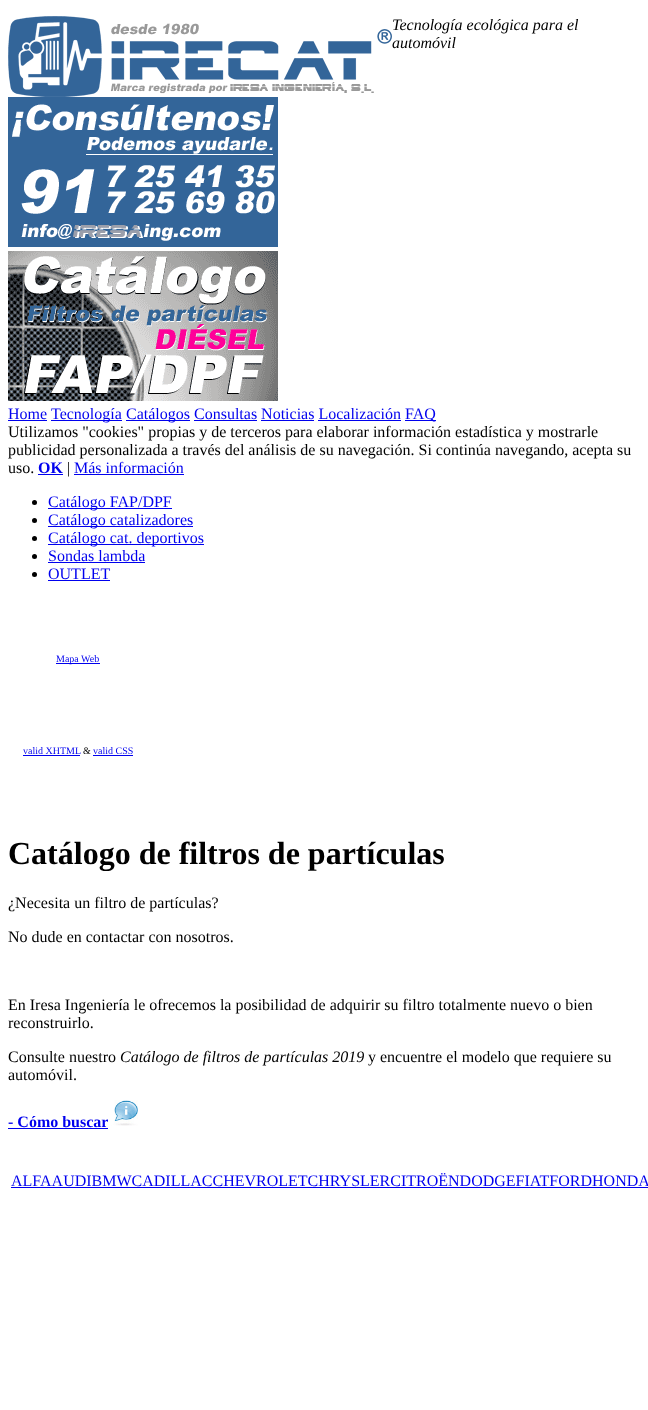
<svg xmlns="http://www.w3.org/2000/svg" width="648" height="1410">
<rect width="100%" height="100%" fill="#fff"/>
<image x="8" y="16" width="384" height="81" href="media/1.png"/>
<text x="392" y="30" style="font-family:Liberation Serif;font-size:16px;font-style:italic;fill:#000">Tecnología ecológica para el</text>
<text x="392" y="48" style="font-family:Liberation Serif;font-size:16px;font-style:italic;fill:#000">automóvil</text>
<image x="8" y="97" width="270" height="150" href="media/2.png"/>
<image x="8" y="251" width="270" height="150" href="media/3.png"/>
<text x="8" y="419" style="font-family:Liberation Serif;font-size:16px;fill:#00e">Home</text>
<rect x="8" y="420" width="39" height="1" fill="#00e"/>
<rect x="51" y="420" width="71" height="1" fill="#00e"/>
<text x="51" y="419" style="font-family:Liberation Serif;font-size:16px;fill:#00e">Tecnología</text>
<rect x="126" y="420" width="64" height="1" fill="#00e"/>
<text x="126" y="419" style="font-family:Liberation Serif;font-size:16px;fill:#00e">Catálogos Consultas Noticias Localización</text>
<rect x="405" y="420" width="31" height="1" fill="#00e"/>
<text x="405" y="419" style="font-family:Liberation Serif;font-size:16px;fill:#00e">FAQ</text>
<rect x="194" y="420" width="63" height="1" fill="#00e"/>
<rect x="261" y="420" width="53" height="1" fill="#00e"/>
<rect x="318" y="420" width="83" height="1" fill="#00e"/>
<text x="8" y="437" style="font-family:Liberation Serif;font-size:16px;fill:#000">Utilizamos "cookies" propias y de terceros para elaborar información estadística y mostrarle</text>
<text x="8" y="455" style="font-family:Liberation Serif;font-size:16px;fill:#000">publicidad personalizada a través del análisis de su navegación. Si continúa navegando, acepta su</text>
<text x="8" y="473" style="font-family:Liberation Serif;font-size:16px;fill:#000">uso.</text>
<text x="38" y="473" style="font-family:Liberation Serif;font-size:16px;font-weight:bold;fill:#00e">OK</text>
<rect x="38" y="474" width="25" height="1" fill="#00e"/>
<text x="67" y="473" style="font-family:Liberation Serif;font-size:16px;fill:#000">|</text>
<text x="74" y="473" style="font-family:Liberation Serif;font-size:16px;fill:#00e">Más información</text>
<rect x="74" y="474" width="110" height="1" fill="#00e"/>
<circle cx="34.5" cy="502.5" r="2.5" fill="#000"/>
<rect x="48" y="508" width="124" height="1" fill="#00e"/>
<text x="48" y="507" style="font-family:Liberation Serif;font-size:16px;fill:#00e">Catálogo FAP/DPF</text>
<circle cx="34.5" cy="520.5" r="2.5" fill="#000"/>
<rect x="48" y="526" width="145" height="1" fill="#00e"/>
<text x="48" y="525" style="font-family:Liberation Serif;font-size:16px;fill:#00e">Catálogo catalizadores</text>
<circle cx="34.5" cy="538.5" r="2.5" fill="#000"/>
<rect x="48" y="544" width="156" height="1" fill="#00e"/>
<text x="48" y="543" style="font-family:Liberation Serif;font-size:16px;fill:#00e">Catálogo cat. deportivos</text>
<circle cx="34.5" cy="556.5" r="2.5" fill="#000"/>
<text x="48" y="561" style="font-family:Liberation Serif;font-size:16px;fill:#00e">Sondas lambda</text>
<rect x="48" y="562" width="97" height="1" fill="#00e"/>
<circle cx="34.5" cy="574.5" r="2.5" fill="#000"/>
<text x="48" y="579" style="font-family:Liberation Serif;font-size:16px;fill:#00e">OUTLET</text>
<rect x="48" y="580" width="62" height="1" fill="#00e"/>
<rect x="56" y="663" width="44" height="1" fill="#00e"/>
<text x="56" y="662" style="font-family:Liberation Serif;font-size:10px;fill:#00e">Mapa Web</text>
<text x="23" y="754" style="font-family:Liberation Serif;font-size:10px;fill:#00e">valid XHTML</text>
<rect x="23" y="755" width="57" height="1" fill="#00e"/>
<text x="83" y="754" style="font-family:Liberation Serif;font-size:10px;fill:#000">&amp;</text>
<text x="93" y="754" style="font-family:Liberation Serif;font-size:10px;fill:#00e">valid CSS</text>
<rect x="93" y="755" width="40" height="1" fill="#00e"/>
<text x="8" y="864" style="font-family:Liberation Serif;font-size:32px;font-weight:bold;fill:#000">Catálogo de filtros de partículas</text>
<text x="8" y="908" style="font-family:Liberation Serif;font-size:16px;fill:#000">¿Necesita un filtro de partículas?</text>
<text x="8" y="942" style="font-family:Liberation Serif;font-size:16px;fill:#000">No dude en contactar con nosotros.</text>
<text x="8" y="1010" style="font-family:Liberation Serif;font-size:16px;fill:#000">En Iresa Ingeniería le ofrecemos la posibilidad de adquirir su filtro totalmente nuevo o bien</text>
<text x="8" y="1028" style="font-family:Liberation Serif;font-size:16px;fill:#000">reconstruirlo.</text>
<text x="8" y="1062" style="font-family:Liberation Serif;font-size:16px;fill:#000">Consulte nuestro</text>
<text x="120" y="1062" style="font-family:Liberation Serif;font-size:16px;font-style:italic;fill:#000">Catálogo de filtros de partículas 2019</text>
<text x="368" y="1062" style="font-family:Liberation Serif;font-size:16px;fill:#000">y encuentre el modelo que requiere su</text>
<text x="8" y="1080" style="font-family:Liberation Serif;font-size:16px;fill:#000">automóvil.</text>
<text x="8" y="1127" style="font-family:Liberation Serif;font-size:16px;font-weight:bold;fill:#00e">- Cómo buscar</text>
<rect x="8" y="1128" width="100" height="1" fill="#00e"/>
<image x="108" y="1100" width="30" height="26" href="media/4.png"/>
<text x="11" y="1186" style="font-family:Liberation Serif;font-size:16px;fill:#00e">ALFAAUDIBMWCADILLACCHEVROLETCHRYSLERCITROËNDODGEFIATFORDHONDA</text>
<rect x="11" y="1187" width="637" height="1" fill="#00e"/>
</svg>
